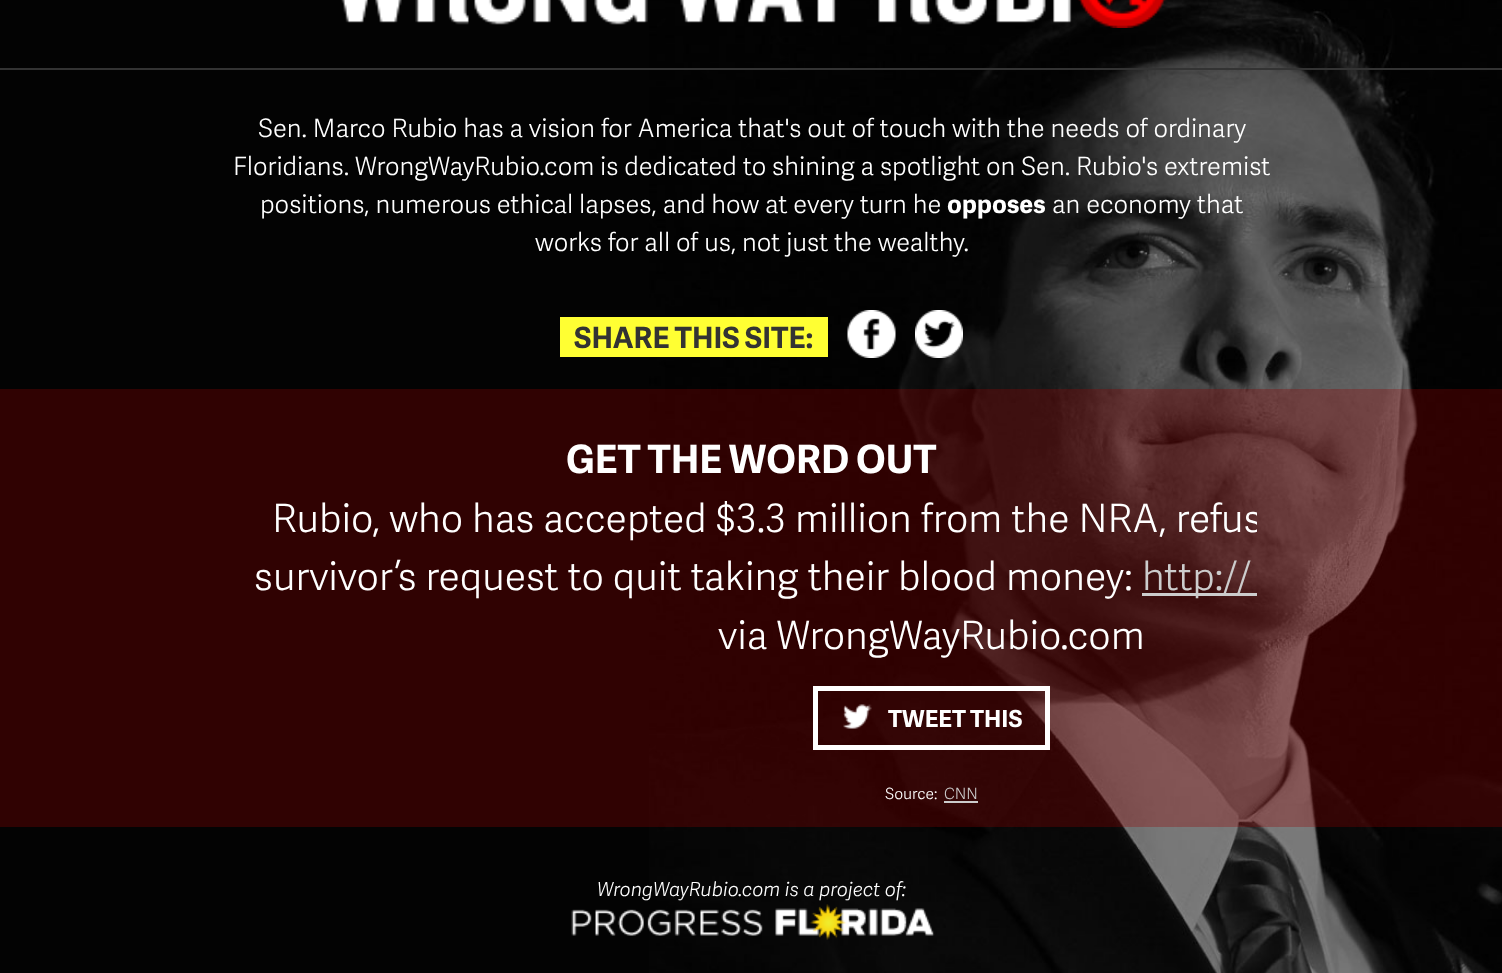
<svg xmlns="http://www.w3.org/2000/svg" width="1502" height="973">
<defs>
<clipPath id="clip1"><rect x="246" y="486" width="1011" height="321"/></clipPath>
</defs>
<rect width="100%" height="100%" fill="#030303"/>
<image x="649" y="0" width="853" height="973" href="media/1.png"/>
<rect y="68" width="1502" height="2" fill="#333"/>
<image x="341" y="0" width="825" height="28" href="media/2.png"/>
<text x="258" y="137" style="font-family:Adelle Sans;font-size:25.35px;font-weight:300;fill:#fff">Sen. Marco Rubio has a vision for America that's out of touch with the needs of ordinary</text>
<text x="233" y="175" style="font-family:Adelle Sans;font-size:25.35px;font-weight:300;fill:#fff">Floridians. WrongWayRubio.com is dedicated to shining a spotlight on Sen. Rubio's extremist</text>
<text x="260" y="213" style="font-family:Adelle Sans;font-size:25.35px;font-weight:300;fill:#fff">positions, numerous ethical lapses, and how at every turn he</text>
<text x="947" y="213" style="font-family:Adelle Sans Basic;font-size:25.35px;font-weight:bold;fill:#fff">opposes</text>
<text x="1052" y="213" style="font-family:Adelle Sans;font-size:25.35px;font-weight:300;fill:#fff">an economy that</text>
<text x="535" y="251" style="font-family:Adelle Sans;font-size:25.35px;font-weight:300;fill:#fff">works for all of us, not just the wealthy.</text>
<rect x="560" y="317" width="268" height="40" fill="#ff3"/>
<text x="574" y="348" style="font-family:Adelle Sans Basic;font-size:29.25px;font-weight:bold;fill:#333">SHARE THIS SITE:</text>
<image x="847" y="310" width="49" height="48" href="media/3.png"/>
<image x="915" y="310" width="48" height="48" href="media/4.png"/>
<rect y="389" width="1502" height="438" fill="#9900004d"/>
<text x="566" y="473" style="font-family:Adelle Sans Basic;font-size:39px;font-weight:bold;fill:#fff">GET THE WORD OUT</text>
<g clip-path="url(#clip1)">
<text x="272" y="532" style="font-family:Adelle Sans;font-size:39px;font-weight:300;fill:#fff">Rubio, who has accepted $3.3 million from the NRA, refus</text>
</g>
<text x="254" y="590" style="font-family:Adelle Sans;font-size:39px;font-weight:300;fill:#fff">survivor’s request to quit taking their blood money:</text>
<rect x="1142" y="593" width="115" height="3" fill="#ccc"/>
<text x="1142" y="590" style="font-family:Adelle Sans;font-size:39px;font-weight:300;fill:#ccc">http://</text>
<text x="718" y="649" style="font-family:Adelle Sans;font-size:39px;font-weight:300;fill:#fff">via WrongWayRubio.com</text>
<image x="843" y="704" width="29" height="25" href="media/5.png"/>
<rect x="815.5" y="688.5" width="232" height="59" fill="none" stroke="#fff" stroke-width="5"/>
<text x="888" y="727" style="font-family:Adelle Sans Basic;font-size:23.5px;font-weight:bold;fill:#fff">TWEET THIS</text>
<text x="885" y="799" style="font-family:Adelle Sans;font-size:15.5px;font-weight:300;fill:#fff">Source:</text>
<text x="944" y="799" style="font-family:Adelle Sans;font-size:15.5px;font-weight:300;fill:#ccc">CNN</text>
<rect x="944" y="801" width="34" height="2" fill="#ccc"/>
<text x="597" y="896" style="font-family:Adelle Sans;font-size:19.5px;font-weight:300;font-style:italic;fill:#fff">WrongWayRubio.com is a project of:</text>
<image x="571" y="904" width="364" height="36" href="media/6.png"/>
</svg>
